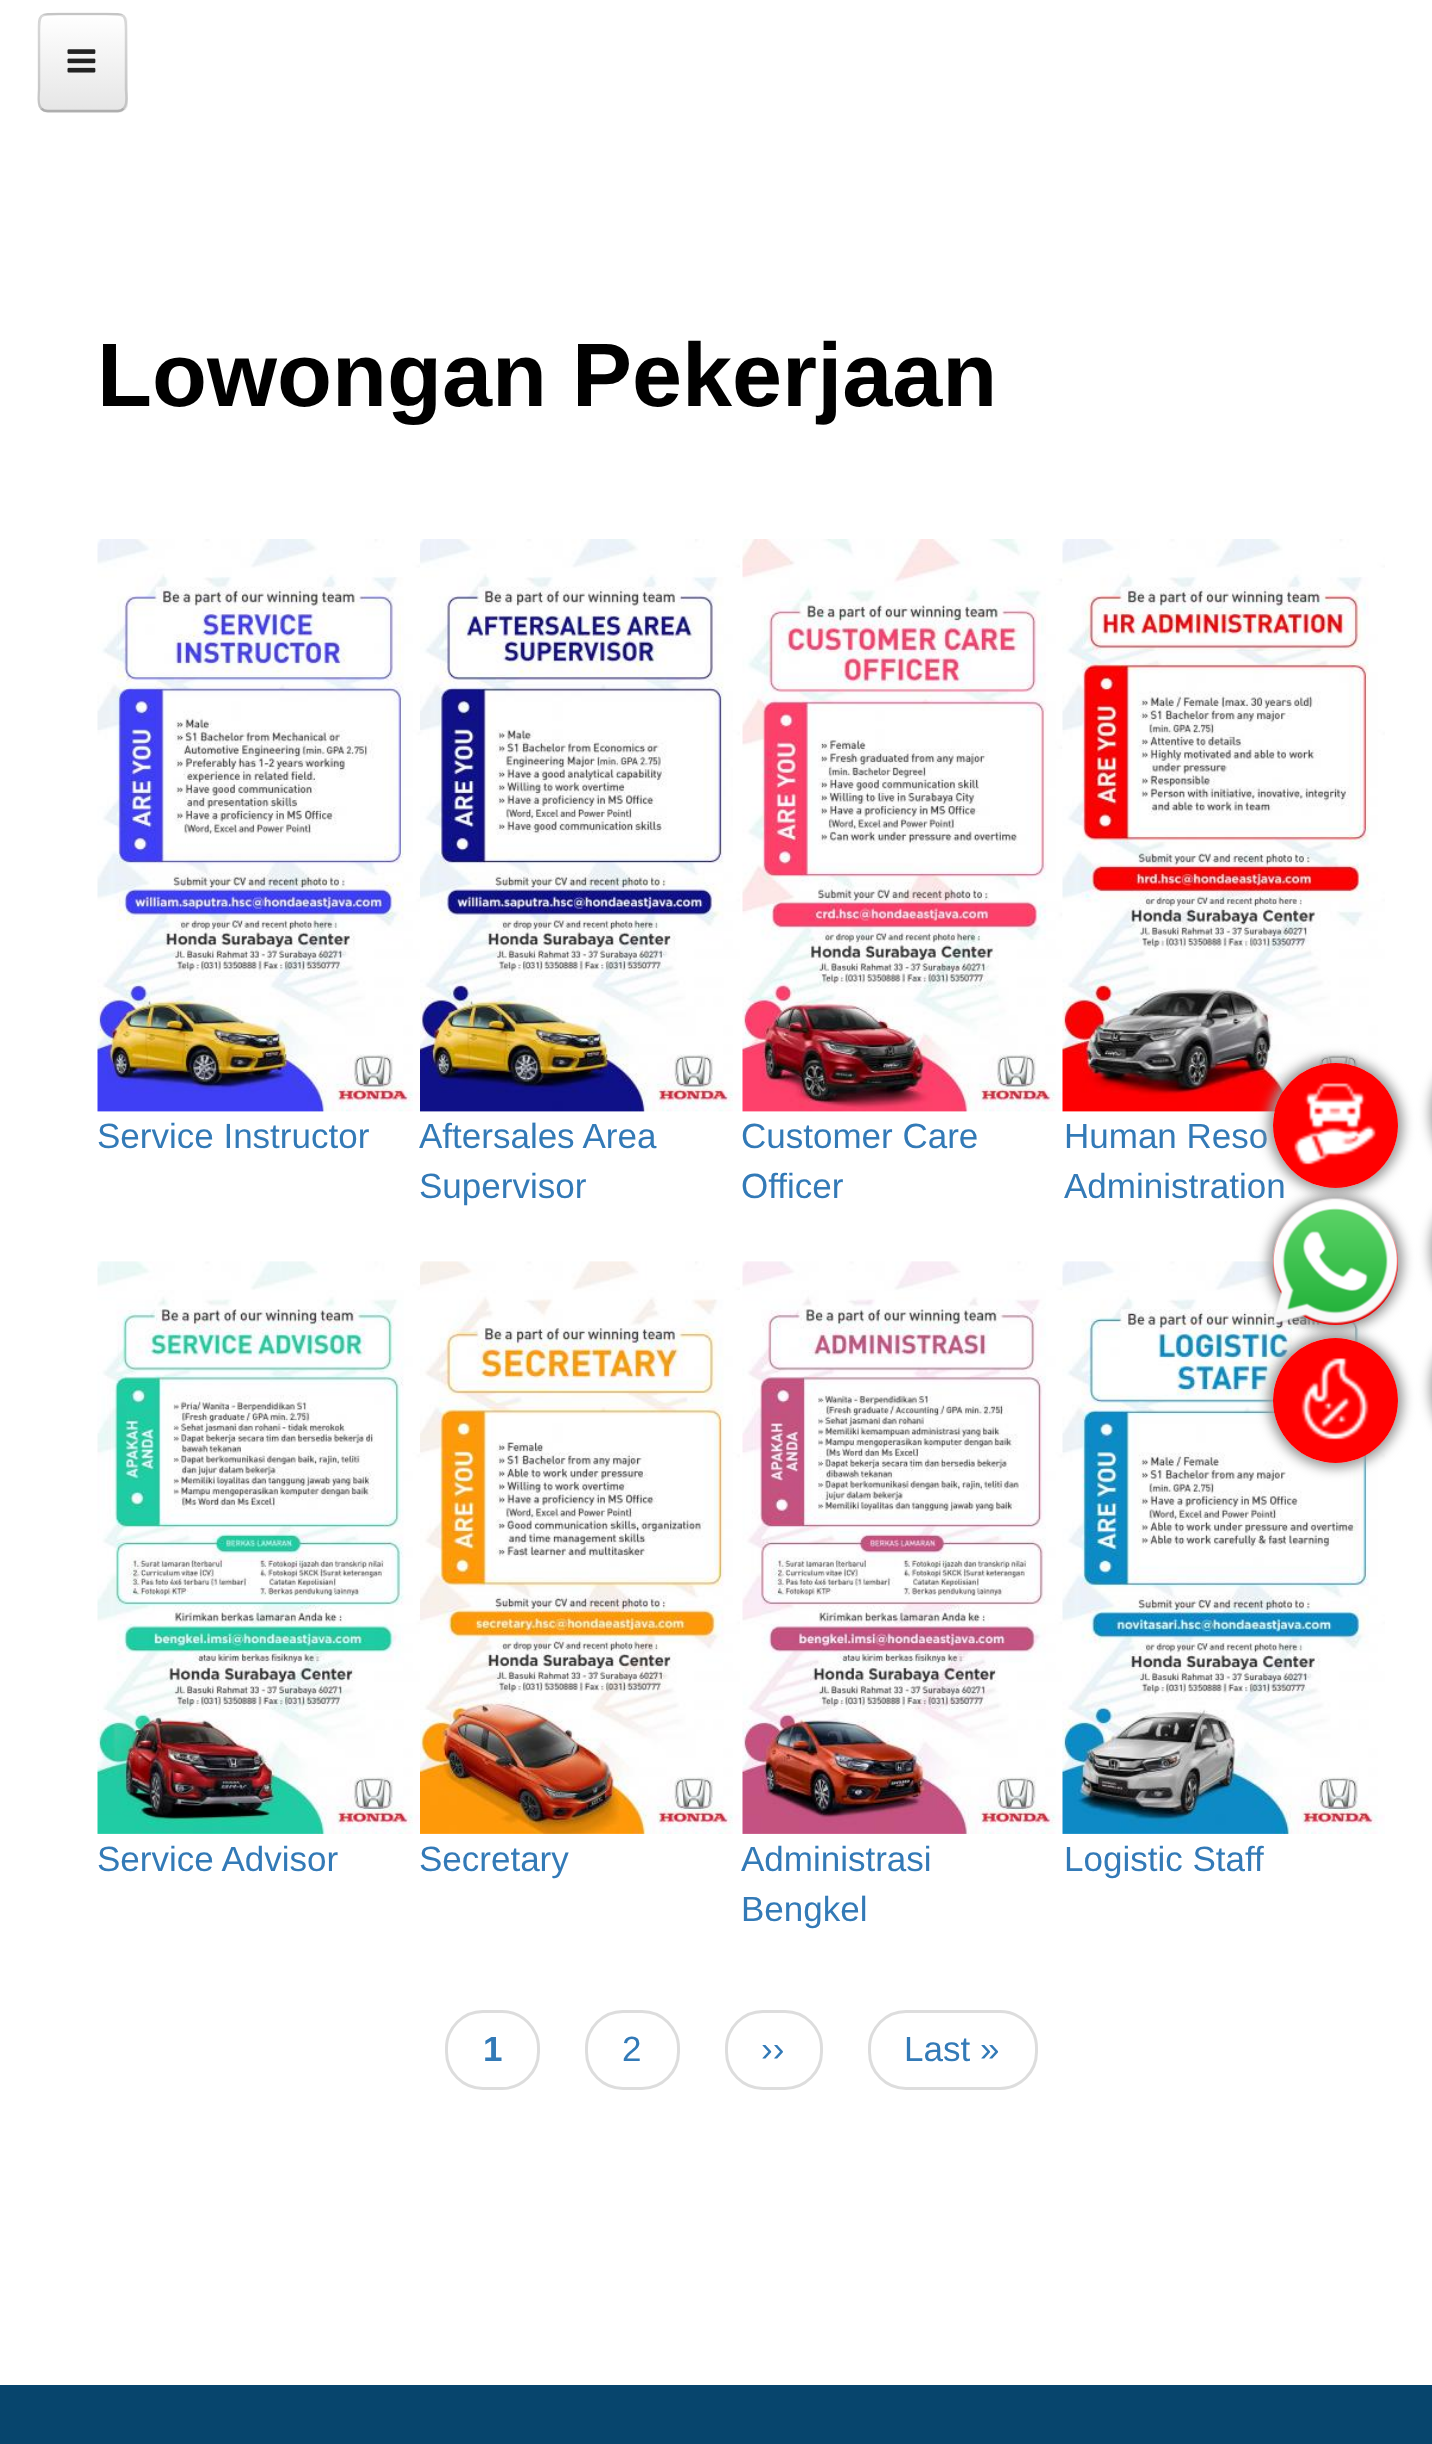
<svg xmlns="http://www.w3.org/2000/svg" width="1432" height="2444">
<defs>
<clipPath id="clip1"><rect x="38" y="13" width="90" height="100" rx="10"/></clipPath>
<linearGradient id="g1" gradientUnits="userSpaceOnUse" x1="83" y1="15" x2="83" y2="110"><stop offset="0" stop-color="#fff"/><stop offset="1" stop-color="#e6e6e6"/></linearGradient>
<clipPath id="clip2"><path d="M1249 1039h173v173h-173zm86.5 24c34.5 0 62.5 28 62.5 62.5c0 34.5-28 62.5-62.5 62.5c-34.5 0-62.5-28-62.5-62.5c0-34.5 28-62.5 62.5-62.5z" clip-rule="evenodd"/></clipPath>
<clipPath id="clip3"><path d="M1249 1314h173v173h-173zm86.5 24c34.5 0 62.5 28 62.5 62.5c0 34.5-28 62.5-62.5 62.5c-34.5 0-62.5-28-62.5-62.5c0-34.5 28-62.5 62.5-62.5z" clip-rule="evenodd"/></clipPath>
</defs>
<rect width="100%" height="100%" fill="#fff"/>
<rect x="38" y="13" width="90" height="100" rx="10" fill="#e8e8e8"/>
<g clip-path="url(#clip1)">
<rect x="38" y="15" width="90" height="95" fill="url(#g1)"/>
</g>
<path d="M48 18h70c4 0 7 3 7 7c0-12-10-10-19-10h-46c-10 0-20-2-20 10c0-4 3-7 8-7z" fill="#fff"/>
<path d="M123.5 108.5c-1.5 2-3.5 2.5-6 2.5h-70c-2.5 0-4.5-.5-6-2.5" fill="none" stroke="#00000040" stroke-width="2.5"/>
<path d="M41.5 108.5c-5-4.5-2.5-14.5-2.5-19.5v-53c0-22-1.5-22 20-22h47c21.5 0 20 0 20 22v53c0 5 2.5 15-2.5 19.5" fill="none" stroke="#00000026" stroke-width="2.5"/>
<image x="67" y="49" width="29" height="24" href="media/1.png"/>
<text x="97" y="406" style="font-family:Liberation Sans;font-size:90px;font-weight:bold;fill:#000">Lowongan Pekerjaan</text>
<image x="97" y="539" width="323" height="573" href="media/2.png"/>
<text x="97" y="1148" style="font-family:Liberation Sans;font-size:35px;fill:#337ab7">Service Instructor</text>
<image x="420" y="539" width="320" height="573" href="media/3.png"/>
<text x="419" y="1148" style="font-family:Liberation Sans;font-size:35px;fill:#337ab7">Aftersales Area</text>
<text x="419" y="1198" style="font-family:Liberation Sans;font-size:35px;fill:#337ab7">Supervisor</text>
<image x="742" y="539" width="321" height="573" href="media/4.png"/>
<text x="741" y="1148" style="font-family:Liberation Sans;font-size:35px;fill:#337ab7">Customer Care</text>
<text x="741" y="1198" style="font-family:Liberation Sans;font-size:35px;fill:#337ab7">Officer</text>
<image x="1062" y="539" width="323" height="573" href="media/5.png"/>
<text x="1064" y="1148" style="font-family:Liberation Sans;font-size:35px;fill:#337ab7">Human Reso</text>
<text x="1064" y="1198" style="font-family:Liberation Sans;font-size:35px;fill:#337ab7">Administration</text>
<image x="97" y="1261" width="323" height="573" href="media/6.png"/>
<text x="97" y="1871" style="font-family:Liberation Sans;font-size:35px;fill:#337ab7">Service Advisor</text>
<image x="420" y="1261" width="320" height="573" href="media/7.png"/>
<text x="419" y="1871" style="font-family:Liberation Sans;font-size:35px;fill:#337ab7">Secretary</text>
<image x="742" y="1261" width="321" height="573" href="media/8.png"/>
<text x="741" y="1871" style="font-family:Liberation Sans;font-size:35px;fill:#337ab7">Administrasi</text>
<text x="741" y="1921" style="font-family:Liberation Sans;font-size:35px;fill:#337ab7">Bengkel</text>
<image x="1062" y="1261" width="323" height="573" href="media/9.png"/>
<text x="1064" y="1871" style="font-family:Liberation Sans;font-size:35px;fill:#337ab7">Logistic Staff</text>
<rect x="446.5" y="2011.5" width="92" height="77" rx="36.5" fill="none" stroke="#ddd" stroke-width="3"/>
<text x="483" y="2061" style="font-family:Liberation Sans;font-size:35px;font-weight:bold;fill:#337ab7">1</text>
<rect x="586.5" y="2011.5" width="92" height="77" rx="36.5" fill="none" stroke="#ddd" stroke-width="3"/>
<text x="622" y="2061" style="font-family:Liberation Sans;font-size:35px;fill:#337ab7">2</text>
<rect x="726.5" y="2011.5" width="95" height="77" rx="36.5" fill="none" stroke="#ddd" stroke-width="3"/>
<text x="761" y="2061" style="font-family:Liberation Sans;font-size:35px;fill:#337ab7">››</text>
<rect x="869.5" y="2011.5" width="167" height="77" rx="36.5" fill="none" stroke="#ddd" stroke-width="3"/>
<text x="904" y="2061" style="font-family:Liberation Sans;font-size:35px;fill:#337ab7">Last »</text>
<rect y="2385" width="1432" height="59" fill="#07456d"/>
<g clip-path="url(#clip2)">
<rect x="1268" y="1058" width="135" height="135" rx="67.5" fill="#999" filter="blur(6px)"/>
</g>
<circle cx="1335.5" cy="1125.5" r="62.5" fill="#f00"/>
<image x="1294" y="1083" width="82" height="82" href="media/10.png"/>
<rect x="1430" y="1058" width="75" height="110" rx="55" fill="#999" filter="blur(6px)"/>
<rect x="1268" y="1195" width="135" height="135" rx="67.5" fill="#999" filter="blur(6px)"/>
<circle cx="1335.5" cy="1262.5" r="62.5" fill="#f00"/>
<image x="1272" y="1198" width="126" height="127" href="media/11.png"/>
<rect x="1430" y="1195" width="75" height="110" rx="55" fill="#999" filter="blur(6px)"/>
<g clip-path="url(#clip3)">
<rect x="1268" y="1333" width="135" height="135" rx="67.5" fill="#999" filter="blur(6px)"/>
</g>
<circle cx="1335.5" cy="1400.5" r="62.5" fill="#f00"/>
<image x="1301" y="1358" width="68" height="82" href="media/12.png"/>
<rect x="1430" y="1333" width="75" height="110" rx="55" fill="#999" filter="blur(6px)"/>
</svg>
